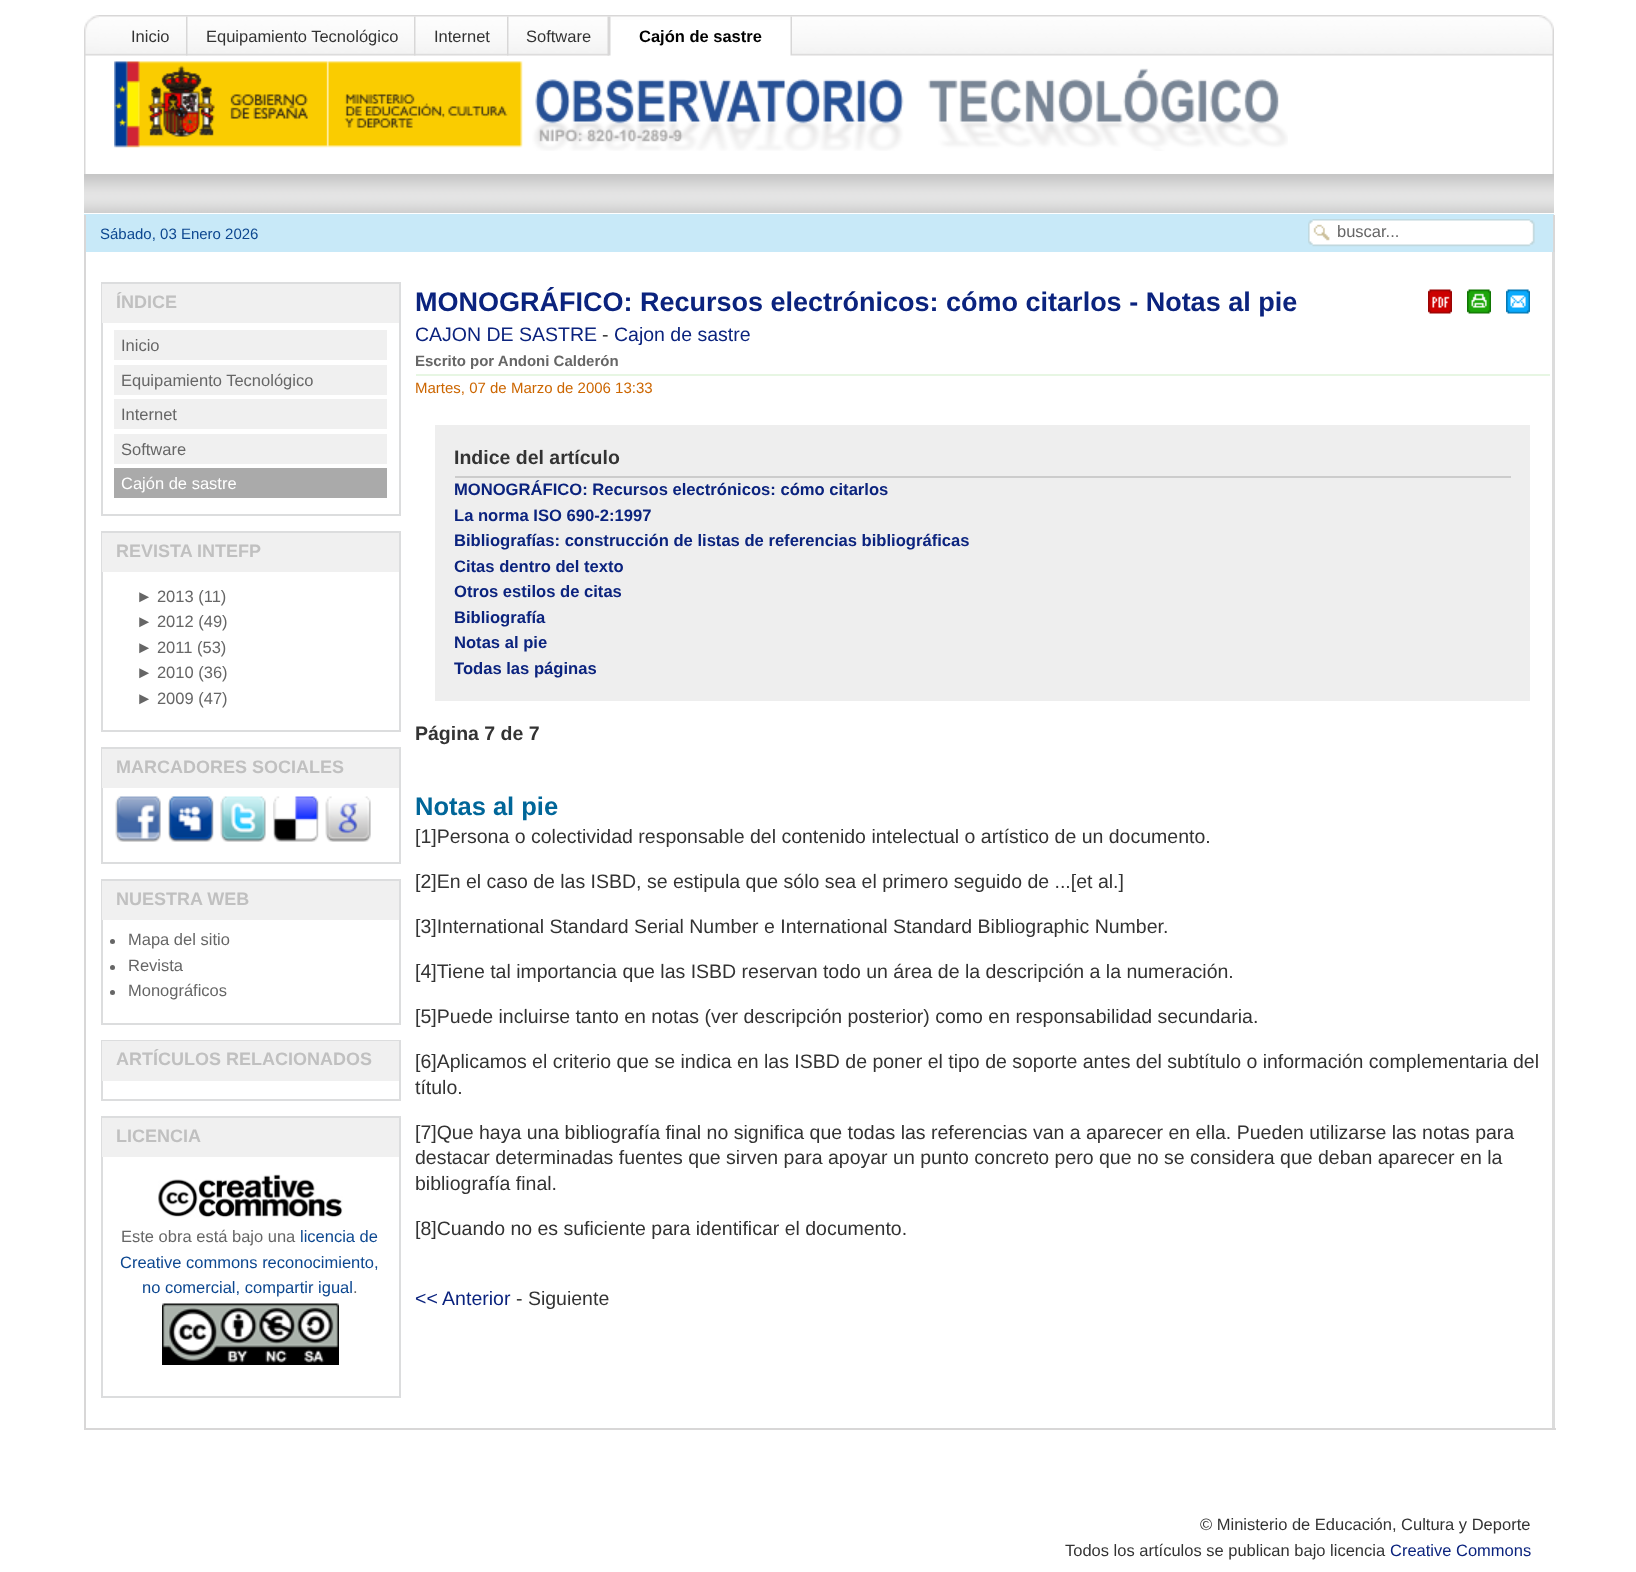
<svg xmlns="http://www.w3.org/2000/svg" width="1636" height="1572">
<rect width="100%" height="100%" fill="#fff"/>
<image x="99" y="15" width="1440" height="41" href="media/1.png"/>
<image x="84" y="15" width="15" height="159" href="media/2.png"/>
<image x="186" y="16" width="2" height="40" href="media/3.png"/>
<text x="131" y="42" style="font-family:Liberation Sans;font-size:16.5px;fill:#333">Inicio</text>
<image x="414" y="16" width="2" height="40" href="media/4.png"/>
<text x="206" y="42" style="font-family:Liberation Sans;font-size:16.5px;fill:#333">Equipamiento Tecnológico</text>
<image x="507" y="16" width="2" height="40" href="media/5.png"/>
<text x="434" y="42" style="font-family:Liberation Sans;font-size:16.5px;fill:#333">Internet</text>
<image x="607" y="16" width="2" height="40" href="media/6.png"/>
<text x="526" y="42" style="font-family:Liberation Sans;font-size:16.5px;fill:#333">Software</text>
<rect x="609" y="20" width="183" height="36" fill="#fff"/>
<image x="609" y="16" width="2" height="40" href="media/7.png"/>
<image x="790" y="16" width="2" height="40" href="media/8.png"/>
<text x="639" y="42" style="font-family:Liberation Sans;font-size:16.5px;font-weight:bold;fill:#000">Cajón de sastre</text>
<image x="114" y="61" width="1174" height="90" href="media/9.png"/>
<image x="1539" y="15" width="15" height="159" href="media/10.png"/>
<image x="84" y="174" width="1470" height="39" href="media/11.png"/>
<rect x="84" y="214" width="1470" height="38" fill="#c8e9f8"/>
<rect x="1553" y="215" width="2" height="37" fill="#d8d7d7"/>
<rect x="84" y="215" width="2" height="37" fill="#d8d7d7"/>
<text x="100" y="239" style="font-family:Liberation Sans;font-size:15px;fill:#0c4790">Sábado, 03 Enero 2026</text>
<image x="1308" y="219" width="227" height="28" href="media/12.png"/>
<text x="1337" y="237" style="font-family:Liberation Sans;font-size:16.5px;fill:#666">buscar...</text>
<rect x="1552" y="252" width="3" height="1178" fill="#dcdcdc"/>
<rect x="84" y="1428" width="1472" height="2" fill="#d8d7d7"/>
<rect x="84" y="252" width="2" height="1178" fill="#d8d7d7"/>
<rect x="102" y="283" width="298" height="232" fill="none" stroke="#dcddde" stroke-width="2"/>
<rect x="102" y="284" width="297" height="39" fill="#f0f0f0"/>
<text x="116" y="308" style="font-family:Liberation Sans;font-size:18px;font-weight:bold;fill:#c0c0c0">ÍNDICE</text>
<rect x="114" y="330" width="273" height="30" fill="#f0f0f0"/>
<text x="121" y="351" style="font-family:Liberation Sans;font-size:16.5px;fill:#666">Inicio</text>
<rect x="114" y="365" width="273" height="30" fill="#f0f0f0"/>
<text x="121" y="386" style="font-family:Liberation Sans;font-size:16.5px;fill:#666">Equipamiento Tecnológico</text>
<rect x="114" y="399" width="273" height="30" fill="#f0f0f0"/>
<text x="121" y="420" style="font-family:Liberation Sans;font-size:16.5px;fill:#666">Internet</text>
<rect x="114" y="434" width="273" height="30" fill="#f0f0f0"/>
<text x="121" y="455" style="font-family:Liberation Sans;font-size:16.5px;fill:#666">Software</text>
<rect x="114" y="468" width="273" height="30" fill="#aaa"/>
<text x="121" y="489" style="font-family:Liberation Sans;font-size:16.5px;fill:#fff">Cajón de sastre</text>
<rect x="102" y="532" width="298" height="199" fill="none" stroke="#dcddde" stroke-width="2"/>
<rect x="102" y="533" width="297" height="39" fill="#f0f0f0"/>
<text x="116" y="557" style="font-family:Liberation Sans;font-size:18px;font-weight:bold;fill:#c0c0c0">REVISTA INTEFP</text>
<text x="136" y="602" style="font-family:Liberation Sans;font-size:16.5px;fill:#666">► 2013 (11)</text>
<text x="136" y="627" style="font-family:Liberation Sans;font-size:16.5px;fill:#666">► 2012 (49)</text>
<text x="136" y="653" style="font-family:Liberation Sans;font-size:16.5px;fill:#666">► 2011 (53)</text>
<text x="136" y="678" style="font-family:Liberation Sans;font-size:16.5px;fill:#666">► 2010 (36)</text>
<text x="136" y="704" style="font-family:Liberation Sans;font-size:16.5px;fill:#666">► 2009 (47)</text>
<rect x="102" y="748" width="298" height="115" fill="none" stroke="#dcddde" stroke-width="2"/>
<rect x="102" y="749" width="297" height="39" fill="#f0f0f0"/>
<text x="116" y="773" style="font-family:Liberation Sans;font-size:18px;font-weight:bold;fill:#c0c0c0">MARCADORES SOCIALES</text>
<image x="115" y="796" width="46" height="46" href="media/13.png"/>
<image x="168" y="796" width="46" height="46" href="media/14.png"/>
<image x="220" y="796" width="46" height="46" href="media/15.png"/>
<image x="273" y="796" width="46" height="46" href="media/16.png"/>
<image x="325" y="796" width="46" height="46" href="media/17.png"/>
<rect x="102" y="880" width="298" height="144" fill="none" stroke="#dcddde" stroke-width="2"/>
<rect x="102" y="881" width="297" height="39" fill="#f0f0f0"/>
<text x="116" y="905" style="font-family:Liberation Sans;font-size:18px;font-weight:bold;fill:#c0c0c0">NUESTRA WEB</text>
<circle cx="112.5" cy="941.5" r="2.5" fill="#666"/>
<text x="128" y="945" style="font-family:Liberation Sans;font-size:16.5px;fill:#666">Mapa del sitio</text>
<circle cx="112.5" cy="967.5" r="2.5" fill="#666"/>
<text x="128" y="971" style="font-family:Liberation Sans;font-size:16.5px;fill:#666">Revista</text>
<circle cx="112.5" cy="992.5" r="2.5" fill="#666"/>
<text x="128" y="996" style="font-family:Liberation Sans;font-size:16.5px;fill:#666">Monográficos</text>
<rect x="102" y="1041" width="298" height="59" fill="none" stroke="#dcddde" stroke-width="2"/>
<rect x="102" y="1041" width="297" height="40" fill="#f0f0f0"/>
<text x="116" y="1065" style="font-family:Liberation Sans;font-size:18px;font-weight:bold;fill:#c0c0c0">ARTÍCULOS RELACIONADOS</text>
<rect x="102" y="1117" width="298" height="280" fill="none" stroke="#dcddde" stroke-width="2"/>
<rect x="102" y="1118" width="297" height="39" fill="#f0f0f0"/>
<text x="116" y="1142" style="font-family:Liberation Sans;font-size:18px;font-weight:bold;fill:#c0c0c0">LICENCIA</text>
<image x="158" y="1174" width="185" height="44" href="media/18.png"/>
<text x="121" y="1242" style="font-family:Liberation Sans;font-size:16.5px;fill:#666">Este obra está bajo una</text>
<text x="300" y="1242" style="font-family:Liberation Sans;font-size:16.5px;fill:#0c4790">licencia de</text>
<text x="120" y="1268" style="font-family:Liberation Sans;font-size:16.5px;fill:#0c4790">Creative commons reconocimiento,</text>
<text x="142" y="1293" style="font-family:Liberation Sans;font-size:16.5px;fill:#0c4790">no comercial, compartir igual</text>
<text x="353" y="1293" style="font-family:Liberation Sans;font-size:16.5px;fill:#666">.</text>
<image x="162" y="1303" width="177" height="62" href="media/19.png"/>
<text x="415" y="311" style="font-family:Liberation Sans;font-size:27px;font-weight:bold;fill:#0b237e">MONOGRÁFICO: Recursos electrónicos: cómo citarlos - Notas al pie</text>
<image x="1428" y="289" width="24" height="25" href="media/20.png"/>
<image x="1467" y="289" width="24" height="25" href="media/21.png"/>
<image x="1506" y="289" width="24" height="25" href="media/22.png"/>
<text x="415" y="341" style="font-family:Liberation Sans;font-size:19.5px;fill:#0b237e">CAJON DE SASTRE</text>
<text x="602" y="341" style="font-family:Liberation Sans;font-size:19.5px;fill:#333">-</text>
<text x="614" y="341" style="font-family:Liberation Sans;font-size:19.5px;fill:#0b237e">Cajon de sastre</text>
<text x="415" y="366" style="font-family:Liberation Sans;font-size:15px;font-weight:bold;fill:#666">Escrito por Andoni Calderón</text>
<rect x="416" y="374" width="1134" height="2" fill="#e7f6e3"/>
<text x="415" y="393" style="font-family:Liberation Sans;font-size:15px;fill:#c60">Martes, 07 de Marzo de 2006 13:33</text>
<rect x="435" y="425" width="1095" height="276" fill="#eee"/>
<rect x="455" y="476" width="1056" height="2" fill="#ccc"/>
<text x="454" y="464" style="font-family:Liberation Sans;font-size:19.5px;font-weight:bold;fill:#333">Indice del artículo</text>
<text x="454" y="495" style="font-family:Liberation Sans;font-size:16.6px;font-weight:bold;fill:#0b237e">MONOGRÁFICO: Recursos electrónicos: cómo citarlos</text>
<text x="454" y="521" style="font-family:Liberation Sans;font-size:16.6px;font-weight:bold;fill:#0b237e">La norma ISO 690-2:1997</text>
<text x="454" y="546" style="font-family:Liberation Sans;font-size:16.6px;font-weight:bold;fill:#0b237e">Bibliografías: construcción de listas de referencias bibliográficas</text>
<text x="454" y="572" style="font-family:Liberation Sans;font-size:16.6px;font-weight:bold;fill:#0b237e">Citas dentro del texto</text>
<text x="454" y="597" style="font-family:Liberation Sans;font-size:16.6px;font-weight:bold;fill:#0b237e">Otros estilos de citas</text>
<text x="454" y="623" style="font-family:Liberation Sans;font-size:16.6px;font-weight:bold;fill:#0b237e">Bibliografía</text>
<text x="454" y="648" style="font-family:Liberation Sans;font-size:16.6px;font-weight:bold;fill:#0b237e">Notas al pie</text>
<text x="454" y="674" style="font-family:Liberation Sans;font-size:16.6px;font-weight:bold;fill:#0b237e">Todas las páginas</text>
<text x="415" y="740" style="font-family:Liberation Sans;font-size:19.5px;font-weight:bold;fill:#333">Página 7 de 7</text>
<text x="415" y="815" style="font-family:Liberation Sans;font-size:25.5px;font-weight:bold;fill:#069">Notas al pie</text>
<text x="415" y="843" style="font-family:Liberation Sans;font-size:19.5px;fill:#333">[1]Persona o colectividad responsable del contenido intelectual o artístico de un documento.</text>
<text x="415" y="888" style="font-family:Liberation Sans;font-size:19.5px;fill:#333">[2]En el caso de las ISBD, se estipula que sólo sea el primero seguido de ...[et al.]</text>
<text x="415" y="933" style="font-family:Liberation Sans;font-size:19.5px;fill:#333">[3]International Standard Serial Number e International Standard Bibliographic Number.</text>
<text x="415" y="978" style="font-family:Liberation Sans;font-size:19.5px;fill:#333">[4]Tiene tal importancia que las ISBD reservan todo un área de la descripción a la numeración.</text>
<text x="415" y="1023" style="font-family:Liberation Sans;font-size:19.5px;fill:#333">[5]Puede incluirse tanto en notas (ver descripción posterior) como en responsabilidad secundaria.</text>
<text x="415" y="1068" style="font-family:Liberation Sans;font-size:19.5px;fill:#333">[6]Aplicamos el criterio que se indica en las ISBD de poner el tipo de soporte antes del subtítulo o información complementaria del</text>
<text x="415" y="1094" style="font-family:Liberation Sans;font-size:19.5px;fill:#333">título.</text>
<text x="415" y="1139" style="font-family:Liberation Sans;font-size:19.5px;fill:#333">[7]Que haya una bibliografía final no significa que todas las referencias van a aparecer en ella. Pueden utilizarse las notas para</text>
<text x="415" y="1164" style="font-family:Liberation Sans;font-size:19.5px;fill:#333">destacar determinadas fuentes que sirven para apoyar un punto concreto pero que no se considera que deban aparecer en la</text>
<text x="415" y="1190" style="font-family:Liberation Sans;font-size:19.5px;fill:#333">bibliografía final.</text>
<text x="415" y="1235" style="font-family:Liberation Sans;font-size:19.5px;fill:#333">[8]Cuando no es suficiente para identificar el documento.</text>
<text x="415" y="1305" style="font-family:Liberation Sans;font-size:19.5px;fill:#0b237e">&lt;&lt; Anterior</text>
<text x="516" y="1305" style="font-family:Liberation Sans;font-size:19.5px;fill:#333">- Siguiente</text>
<text x="1200" y="1530" style="font-family:Liberation Sans;font-size:16.5px;fill:#333">© Ministerio de Educación, Cultura y Deporte</text>
<text x="1065" y="1556" style="font-family:Liberation Sans;font-size:16.5px;fill:#333">Todos los artículos se publican bajo licencia</text>
<text x="1390" y="1556" style="font-family:Liberation Sans;font-size:16.5px;fill:#0b237e">Creative Commons</text>
</svg>
